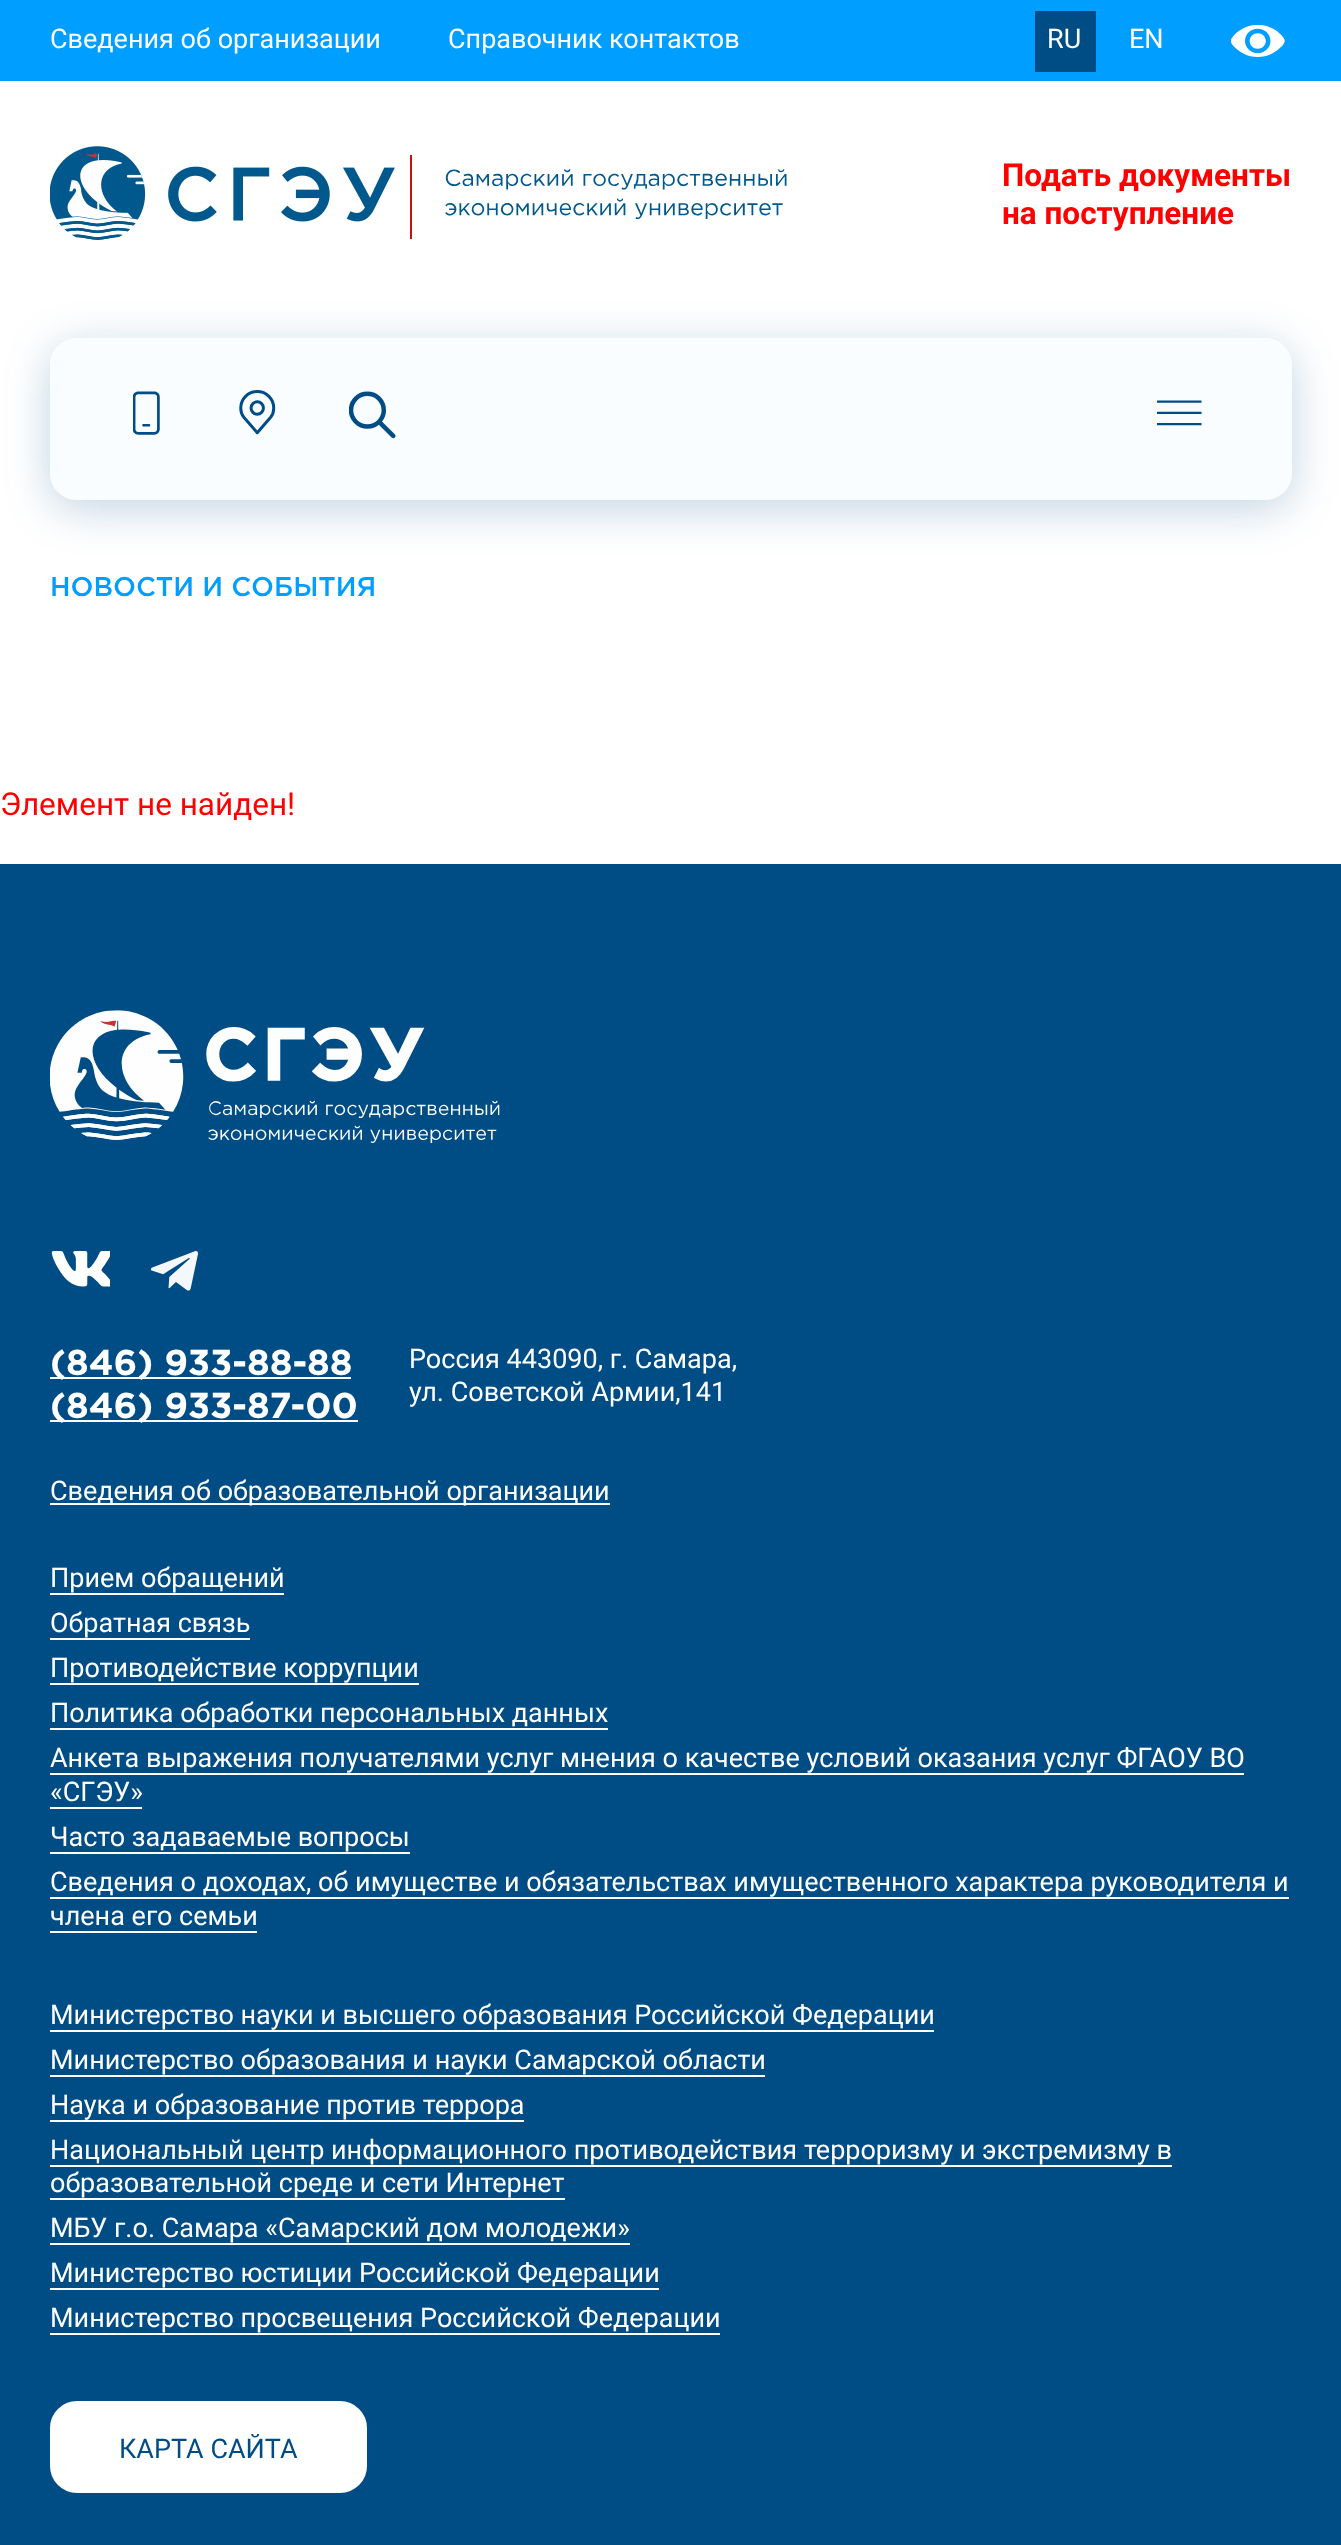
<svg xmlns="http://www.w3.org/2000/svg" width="1341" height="2545">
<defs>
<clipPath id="clip1"><path d="M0 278h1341v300h-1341zm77 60h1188c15 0 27 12 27 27v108c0 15-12 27-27 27h-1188c-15 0-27-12-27-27v-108c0-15 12-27 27-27z" clip-rule="evenodd"/></clipPath>
</defs>
<rect width="100%" height="100%" fill="#fff"/>
<rect width="1341" height="81" fill="#009eff"/>
<text x="50" y="48" style="font-family:Roboto;font-size:27px;fill:#fff">Сведения об организации</text>
<text x="448" y="48" style="font-family:Roboto;font-size:27px;fill:#fff">Справочник контактов</text>
<rect x="1035" y="11" width="61" height="61" fill="#004d85"/>
<text x="1047" y="48" style="font-family:Roboto;font-size:27px;fill:#fff">RU</text>
<text x="1129" y="48" style="font-family:Roboto;font-size:27px;fill:#fff">EN</text>
<image x="1231" y="25" width="54" height="32" href="media/1.png"/>
<image x="50" y="146" width="345" height="94" href="media/2.png"/>
<rect x="410" y="155" width="2" height="84" fill="#c2130e"/>
<image x="445" y="169" width="342" height="50" href="media/3.png"/>
<text x="1002" y="186" style="font-family:Roboto;font-size:31.5px;font-weight:bold;fill:#f00">Подать документы</text>
<text x="1002" y="224" style="font-family:Roboto;font-size:31.5px;font-weight:bold;fill:#f00">на поступление</text>
<g clip-path="url(#clip1)">
<rect x="50" y="347" width="1242" height="162" rx="27" fill="#004d853d" filter="blur(22.5px)"/>
</g>
<rect x="50" y="338" width="1242" height="162" rx="27" fill="#f5fcff80"/>
<image x="133" y="391" width="27" height="44" href="media/4.png"/>
<image x="239" y="390" width="37" height="45" href="media/5.png"/>
<image x="349" y="391" width="47" height="48" href="media/6.png"/>
<image x="1157" y="400" width="45" height="26" href="media/7.png"/>
<text x="50" y="596" style="font-family:Gotham;font-size:27px;font-weight:500;fill:#009eff">НОВОСТИ И СОБЫТИЯ</text>
<text x="0" y="815" style="font-family:Roboto;font-size:31.5px;fill:#f00">Элемент не найден!</text>
<rect y="864" width="1341" height="1681" fill="#004d85"/>
<image x="50" y="1010" width="450" height="133" href="media/8.png"/>
<image x="51" y="1251" width="59" height="36" href="media/9.png"/>
<image x="151" y="1251" width="47" height="40" href="media/10.png"/>
<rect x="50" y="1377" width="301" height="2" fill="#fff"/>
<text x="50" y="1375" style="font-family:Gotham;font-size:36px;font-weight:bold;fill:#fff">(846) 933-88-88</text>
<rect x="50" y="1420" width="308" height="2" fill="#fff"/>
<text x="50" y="1418" style="font-family:Gotham;font-size:36px;font-weight:bold;fill:#fff">(846) 933-87-00</text>
<text x="409" y="1368" style="font-family:Roboto;font-size:27px;fill:#fff">Россия 443090, г. Самара,</text>
<text x="409" y="1401" style="font-family:Roboto;font-size:27px;fill:#fff">ул. Советской Армии,141</text>
<rect x="50" y="1503" width="560" height="2" fill="#fff"/>
<text x="50" y="1500" style="font-family:Roboto;font-size:27px;fill:#fff">Сведения об образовательной организации</text>
<text x="50" y="1587" style="font-family:Roboto;font-size:27px;fill:#fff">Прием обращений</text>
<rect x="50" y="1593" width="234" height="2" fill="#fff"/>
<text x="50" y="1632" style="font-family:Roboto;font-size:27px;fill:#fff">Обратная связь</text>
<rect x="50" y="1638" width="200" height="2" fill="#fff"/>
<text x="50" y="1677" style="font-family:Roboto;font-size:27px;fill:#fff">Противодействие коррупции</text>
<rect x="50" y="1683" width="369" height="2" fill="#fff"/>
<text x="50" y="1722" style="font-family:Roboto;font-size:27px;fill:#fff">Политика обработки персональных данных</text>
<rect x="50" y="1728" width="558" height="2" fill="#fff"/>
<text x="50" y="1767" style="font-family:Roboto;font-size:27px;fill:#fff">Анкета выражения получателями услуг мнения о качестве условий оказания услуг ФГАОУ ВО</text>
<rect x="50" y="1773" width="1194" height="2" fill="#fff"/>
<text x="50" y="1801" style="font-family:Roboto;font-size:27px;fill:#fff">«СГЭУ»</text>
<rect x="50" y="1807" width="92" height="2" fill="#fff"/>
<text x="50" y="1846" style="font-family:Roboto;font-size:27px;fill:#fff">Часто задаваемые вопросы</text>
<rect x="50" y="1852" width="360" height="2" fill="#fff"/>
<text x="50" y="1891" style="font-family:Roboto;font-size:27px;fill:#fff">Сведения о доходах, об имуществе и обязательствах имущественного характера руководителя и</text>
<rect x="50" y="1897" width="1239" height="2" fill="#fff"/>
<text x="50" y="1925" style="font-family:Roboto;font-size:27px;fill:#fff">члена его семьи</text>
<rect x="50" y="1931" width="207" height="2" fill="#fff"/>
<text x="50" y="2024" style="font-family:Roboto;font-size:27px;fill:#fff">Министерство науки и высшего образования Российской Федерации</text>
<rect x="50" y="2030" width="884" height="2" fill="#fff"/>
<text x="50" y="2069" style="font-family:Roboto;font-size:27px;fill:#fff">Министерство образования и науки Самарской области</text>
<rect x="50" y="2075" width="715" height="2" fill="#fff"/>
<text x="50" y="2114" style="font-family:Roboto;font-size:27px;fill:#fff">Наука и образование против террора</text>
<rect x="50" y="2120" width="474" height="2" fill="#fff"/>
<text x="50" y="2159" style="font-family:Roboto;font-size:27px;fill:#fff">Национальный центр информационного противодействия терроризму и экстремизму в</text>
<rect x="50" y="2165" width="1122" height="2" fill="#fff"/>
<text x="50" y="2192" style="font-family:Roboto;font-size:27px;fill:#fff">образовательной среде и сети Интернет</text>
<rect x="50" y="2198" width="515" height="2" fill="#fff"/>
<text x="50" y="2237" style="font-family:Roboto;font-size:27px;fill:#fff">МБУ г.о. Самара «Самарский дом молодежи»</text>
<rect x="50" y="2243" width="580" height="2" fill="#fff"/>
<text x="50" y="2282" style="font-family:Roboto;font-size:27px;fill:#fff">Министерство юстиции Российской Федерации</text>
<rect x="50" y="2288" width="609" height="2" fill="#fff"/>
<text x="50" y="2327" style="font-family:Roboto;font-size:27px;fill:#fff">Министерство просвещения Российской Федерации</text>
<rect x="50" y="2333" width="670" height="2" fill="#fff"/>
<rect x="51" y="2402" width="315" height="90" rx="26" fill="#fff" stroke="#fff" stroke-width="2"/>
<text x="119" y="2458" style="font-family:Roboto;font-size:27px;fill:#004d85">КАРТА САЙТА</text>
</svg>
